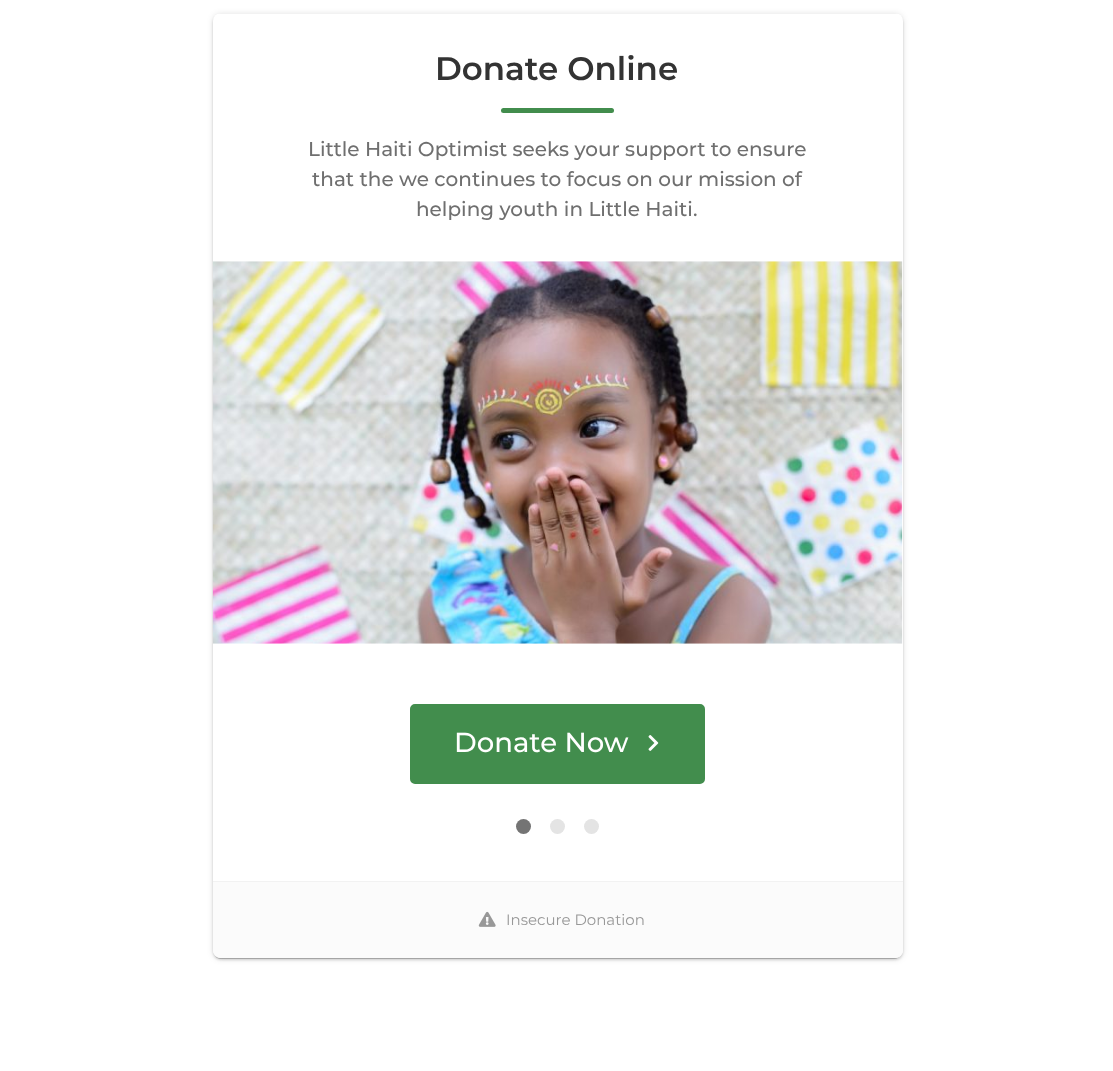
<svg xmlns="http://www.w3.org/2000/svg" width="1113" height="1071">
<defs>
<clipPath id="clip1"><rect x="213" y="13" width="690" height="945" rx="8"/></clipPath>
</defs>
<rect width="100%" height="100%" fill="#fff"/>
<rect x="213" y="14" width="690" height="945" rx="8" fill="#0000001f" filter="blur(3px)"/>
<rect x="215" y="19" width="685" height="940" rx="5" fill="#00000033" filter="blur(0.5px)"/>
<rect x="213" y="15" width="690" height="945" rx="8" fill="#00000024" filter="blur(1px)"/>
<rect x="213" y="13" width="690" height="945" rx="8" fill="#fff"/>
<g clip-path="url(#clip1)">
<rect x="213" y="13" width="690" height="1" fill="#f2f2f2"/>
</g>
<text x="435" y="80" style="font-family:Montserrat;font-size:32.5px;font-weight:600;fill:#333">Donate Online</text>
<rect x="501" y="108" width="113" height="5" rx="2.5" fill="#428d4d"/>
<text x="308" y="156" style="font-family:Montserrat;font-size:20px;font-weight:500;fill:#6f6f6f">Little Haiti Optimist seeks your support to ensure</text>
<text x="312" y="186" style="font-family:Montserrat;font-size:20px;font-weight:500;fill:#6f6f6f">that the we continues to focus on our mission of</text>
<text x="416" y="216" style="font-family:Montserrat;font-size:20px;font-weight:500;fill:#6f6f6f">helping youth in Little Haiti.</text>
<image x="212" y="261" width="691" height="383" href="media/1.png"/>
<rect x="411.5" y="705.5" width="292" height="77" rx="3.5" fill="#428d4d" stroke="#428d4d" stroke-width="3"/>
<text x="454" y="752" style="font-family:Montserrat;font-size:27.5px;font-weight:500;fill:#fff">Donate Now</text>
<image x="648" y="735" width="11" height="16" href="media/2.png"/>
<circle cx="523.5" cy="826.5" r="7.5" fill="#747474"/>
<circle cx="557.5" cy="826.5" r="7.5" fill="#e4e4e4"/>
<circle cx="591.5" cy="826.5" r="7.5" fill="#e4e4e4"/>
<path d="M213 881h690v69c0 4.5-3.5 8-8 8h-674c-4.5 0-8-3.5-8-8z" fill="#fbfbfb"/>
<rect x="213" y="881" width="690" height="1" fill="#f2f2f2"/>
<image x="478" y="911" width="18" height="16" href="media/3.png"/>
<text x="506" y="925" style="font-family:Montserrat;font-size:15px;fill:#989898">Insecure Donation</text>
</svg>
